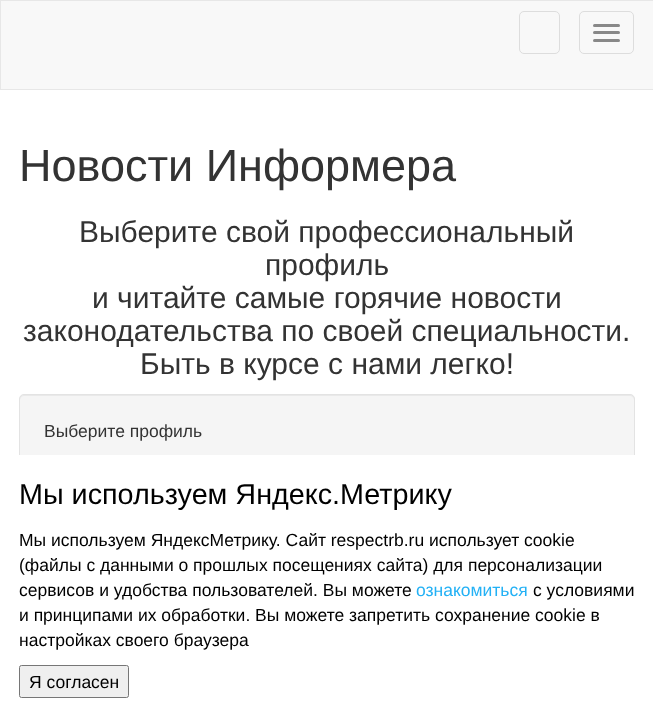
<svg xmlns="http://www.w3.org/2000/svg" width="653" height="716">
<rect width="100%" height="100%" fill="#fff"/>
<rect x="0.5" y="0.5" width="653" height="89" fill="#f8f8f8" stroke="#e7e7e7"/>
<rect x="519.5" y="11.5" width="40" height="42" rx="4.5" fill="none" stroke="#ddd"/>
<rect x="579.5" y="11.5" width="54" height="42" rx="4.5" fill="none" stroke="#ddd"/>
<rect x="593" y="24" width="27" height="3" rx="1.5" fill="#888"/>
<rect x="593" y="31" width="27" height="3" rx="1.5" fill="#888"/>
<rect x="593" y="39" width="27" height="3" rx="1.5" fill="#888"/>
<text x="19" y="181" style="font-family:Liberation Sans;font-size:45px;fill:#333">Новости Информера</text>
<text x="79" y="242" style="font-family:Liberation Sans;font-size:30px;fill:#333">Выберите свой профессиональный</text>
<text x="265" y="275" style="font-family:Liberation Sans;font-size:30px;fill:#333">профиль</text>
<text x="92" y="308" style="font-family:Liberation Sans;font-size:30px;fill:#333">и читайте самые горячие новости</text>
<text x="23" y="341" style="font-family:Liberation Sans;font-size:30px;fill:#333">законодательства по своей специальности.</text>
<text x="140" y="374" style="font-family:Liberation Sans;font-size:30px;fill:#333">Быть в курсе с нами легко!</text>
<rect x="19" y="394" width="616" height="291" rx="5" fill="#f5f5f5"/>
<path d="M24 396h606c2 0 4 2 4 4v-1c0-2-2-4-4-4h-606c-2 0-4 2-4 4v1c0-2 2-4 4-4z" fill="#e9e9e9"/>
<rect x="19.5" y="394.5" width="615" height="290" rx="4.5" fill="none" stroke="#e3e3e3"/>
<text x="44" y="437" style="font-family:Liberation Sans;font-size:17.5px;fill:#333">Выберите профиль</text>
<rect x="19" y="455" width="616" height="230" fill="#fff"/>
<text x="19" y="504" style="font-family:Liberation Sans;font-size:28.75px;fill:#000">Мы используем Яндекс.Метрику</text>
<text x="19" y="546" style="font-family:Liberation Sans;font-size:17.5px;fill:#000">Мы используем ЯндексМетрику. Сайт respectrb.ru использует cookie</text>
<text x="19" y="571" style="font-family:Liberation Sans;font-size:17.5px;fill:#000">(файлы с данными о прошлых посещениях сайта) для персонализации</text>
<text x="19" y="596" style="font-family:Liberation Sans;font-size:17.5px;fill:#000">сервисов и удобства пользователей. Вы можете</text>
<text x="416" y="596" style="font-family:Liberation Sans;font-size:17.5px;fill:#23b1f5">ознакомиться</text>
<text x="533" y="596" style="font-family:Liberation Sans;font-size:17.5px;fill:#000">с условиями</text>
<text x="19" y="621" style="font-family:Liberation Sans;font-size:17.5px;fill:#000">и принципами их обработки. Вы можете запретить сохранение cookie в</text>
<text x="19" y="646" style="font-family:Liberation Sans;font-size:17.5px;fill:#000">настройках своего браузера</text>
<rect x="19.5" y="665.5" width="109" height="32" rx="2" fill="#efefef" stroke="#767676"/>
<text x="29" y="688" style="font-family:Liberation Sans;font-size:17.5px;fill:#000">Я согласен</text>
</svg>
